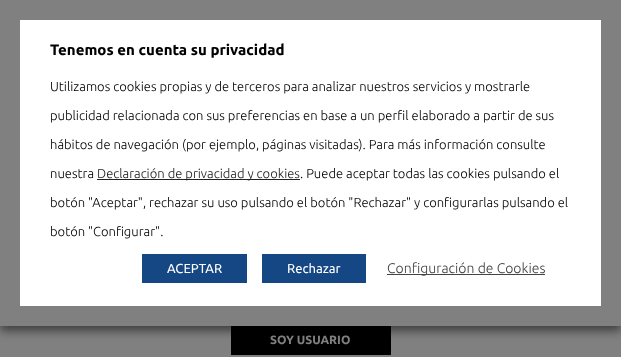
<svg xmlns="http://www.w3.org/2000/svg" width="621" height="357">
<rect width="100%" height="100%" fill="#808080"/>
<rect x="231" y="326" width="160" height="29" fill="#000"/>
<rect y="5" width="621" height="326" fill="#00000080" filter="blur(5px)"/>
<rect x="10" y="10" width="601" height="306" fill="#fff" stroke="#808080" stroke-width="20"/>
<text x="50" y="55" style="font-family:Ubuntu;font-size:15px;font-weight:bold;fill:#000">Tenemos en cuenta su privacidad</text>
<text x="50" y="91" style="font-family:Ubuntu;font-size:13px;font-weight:300;fill:#000">Utilizamos cookies propias y de terceros para analizar nuestros servicios y mostrarle</text>
<text x="50" y="120" style="font-family:Ubuntu;font-size:13px;font-weight:300;fill:#000">publicidad relacionada con sus preferencias en base a un perfil elaborado a partir de sus</text>
<text x="50" y="149" style="font-family:Ubuntu;font-size:13px;font-weight:300;fill:#000">hábitos de navegación (por ejemplo, páginas visitadas). Para más información consulte</text>
<text x="50" y="178" style="font-family:Ubuntu;font-size:13px;font-weight:300;fill:#000">nuestra</text>
<rect x="97" y="179" width="203" height="1" fill="#222"/>
<text x="97" y="178" style="font-family:Ubuntu;font-size:13px;font-weight:300;fill:#222">Declaración de privacidad y cookies</text>
<text x="300" y="178" style="font-family:Ubuntu;font-size:13px;font-weight:300;fill:#000">. Puede aceptar todas las cookies pulsando el</text>
<text x="50" y="207" style="font-family:Ubuntu;font-size:13px;font-weight:300;fill:#000">botón "Aceptar", rechazar su uso pulsando el botón "Rechazar" y configurarlas pulsando el</text>
<text x="50" y="236" style="font-family:Ubuntu;font-size:13px;font-weight:300;fill:#000">botón "Configurar".</text>
<rect x="142" y="254" width="105" height="29" fill="#154784"/>
<text x="167" y="273" style="font-family:Ubuntu;font-size:13px;fill:#fff">ACEPTAR</text>
<rect x="262" y="254" width="104" height="29" fill="#154784"/>
<text x="287" y="273" style="font-family:Ubuntu;font-size:13px;fill:#fff">Rechazar</text>
<rect x="387" y="274" width="158" height="1" fill="#444"/>
<text x="387" y="273" style="font-family:Ubuntu;font-size:14px;font-weight:300;fill:#444">Configuración de Cookies</text>
<text x="270" y="344" style="font-family:Ubuntu;font-size:12px;font-weight:bold;fill:#808080">SOY USUARIO</text>
</svg>
